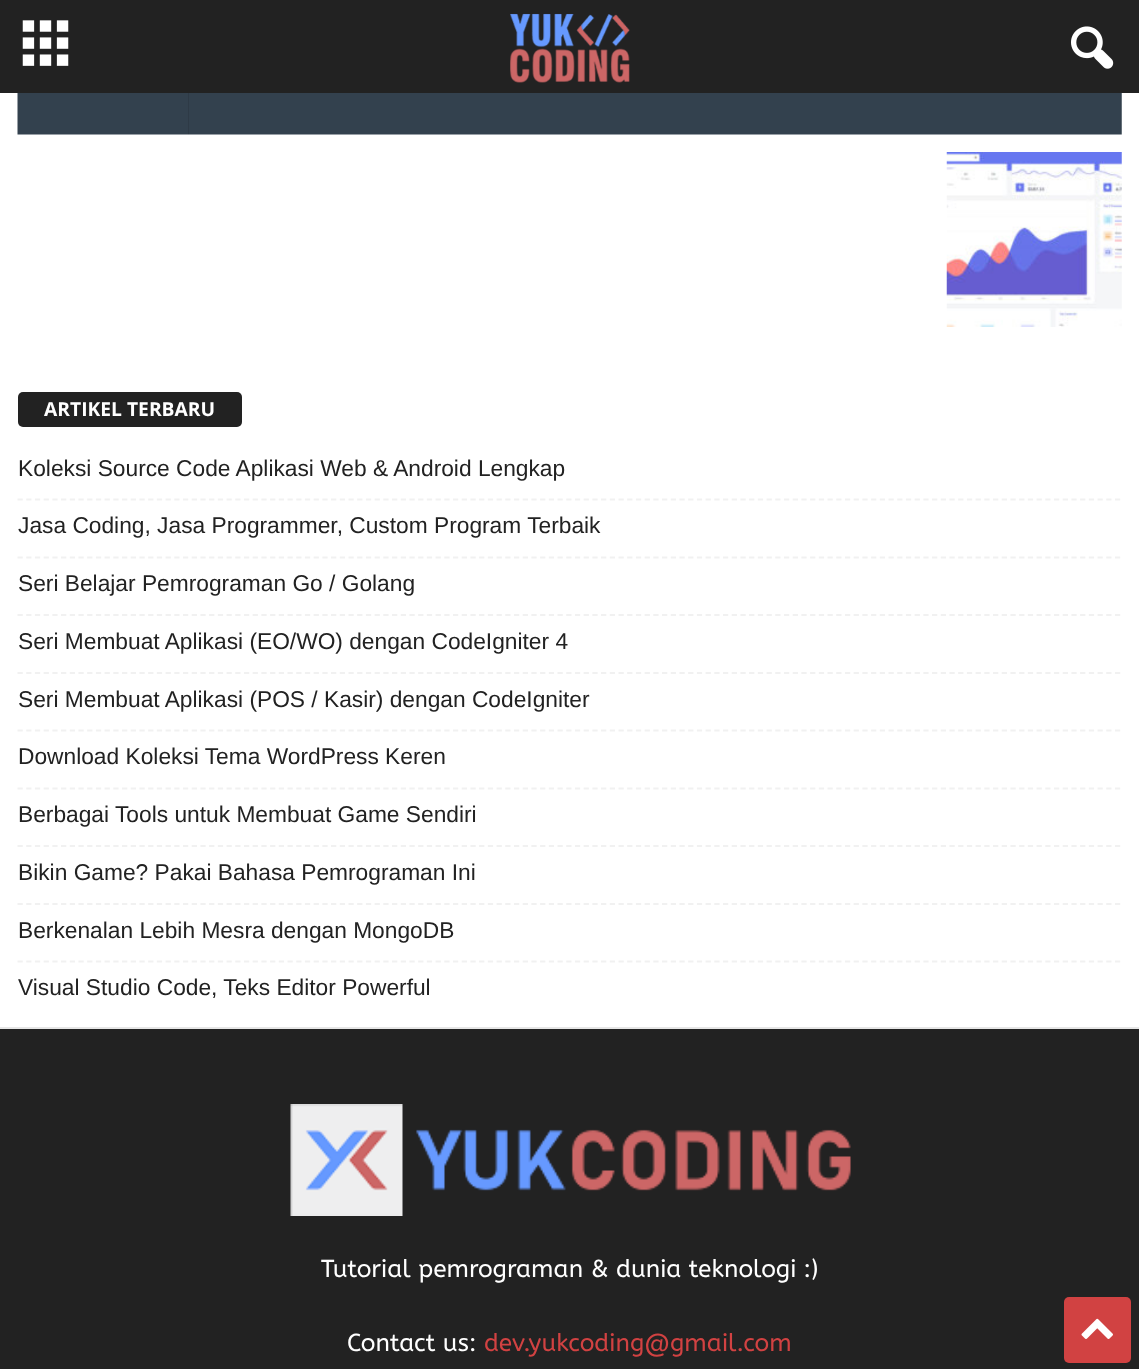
<svg xmlns="http://www.w3.org/2000/svg" width="1139" height="1369">
<rect width="100%" height="100%" fill="#222"/>
<image x="22" y="20" width="47" height="46" href="media/1.png"/>
<image x="510" y="13" width="120" height="70" href="media/2.png"/>
<image x="1071" y="26" width="43" height="43" href="media/3.png"/>
<rect y="93" width="1139" height="934" fill="#fff"/>
<rect y="1027" width="1139" height="2" fill="#e6e6e6"/>
<image x="17" y="93" width="1105" height="42" href="media/4.png"/>
<image x="946" y="152" width="176" height="175" href="media/5.png"/>
<rect x="18" y="392" width="224" height="35" rx="5" fill="#222"/>
<text x="44" y="416" style="font-family:Open Sans;font-size:19.25px;font-weight:bold;fill:#fff">ARTIKEL TERBARU</text>
<path d="M17.5 499.5h1104.5" fill="none" stroke="#f1f1f1" stroke-width="1.8" stroke-dasharray="5.25 3.46"/>
<text x="18" y="476" style="font-family:Liberation Sans;font-size:22.75px;fill:#222">Koleksi Source Code Aplikasi Web &amp; Android Lengkap</text>
<path d="M17.5 557.5h1104.5" fill="none" stroke="#f1f1f1" stroke-width="1.8" stroke-dasharray="5.25 3.46"/>
<text x="18" y="533" style="font-family:Liberation Sans;font-size:22.75px;fill:#222">Jasa Coding, Jasa Programmer, Custom Program Terbaik</text>
<path d="M17.5 615h1104.5" fill="none" stroke="#f1f1f1" stroke-width="1.8" stroke-dasharray="5.25 3.46"/>
<text x="18" y="591" style="font-family:Liberation Sans;font-size:22.75px;fill:#222">Seri Belajar Pemrograman Go / Golang</text>
<path d="M17.5 673h1104.5" fill="none" stroke="#f1f1f1" stroke-width="1.8" stroke-dasharray="5.25 3.46"/>
<text x="18" y="649" style="font-family:Liberation Sans;font-size:22.75px;fill:#222">Seri Membuat Aplikasi (EO/WO) dengan CodeIgniter 4</text>
<path d="M17.5 730.5h1104.5" fill="none" stroke="#f1f1f1" stroke-width="1.8" stroke-dasharray="5.25 3.46"/>
<text x="18" y="707" style="font-family:Liberation Sans;font-size:22.75px;fill:#222">Seri Membuat Aplikasi (POS / Kasir) dengan CodeIgniter</text>
<path d="M17.5 788.5h1104.5" fill="none" stroke="#f1f1f1" stroke-width="1.8" stroke-dasharray="5.25 3.46"/>
<text x="18" y="764" style="font-family:Liberation Sans;font-size:22.75px;fill:#222">Download Koleksi Tema WordPress Keren</text>
<path d="M17.5 846h1104.5" fill="none" stroke="#f1f1f1" stroke-width="1.8" stroke-dasharray="5.25 3.46"/>
<text x="18" y="822" style="font-family:Liberation Sans;font-size:22.75px;fill:#222">Berbagai Tools untuk Membuat Game Sendiri</text>
<path d="M17.5 904h1104.5" fill="none" stroke="#f1f1f1" stroke-width="1.8" stroke-dasharray="5.25 3.46"/>
<text x="18" y="880" style="font-family:Liberation Sans;font-size:22.75px;fill:#222">Bikin Game? Pakai Bahasa Pemrograman Ini</text>
<path d="M17.5 961.5h1104.5" fill="none" stroke="#f1f1f1" stroke-width="1.8" stroke-dasharray="5.25 3.46"/>
<text x="18" y="938" style="font-family:Liberation Sans;font-size:22.75px;fill:#222">Berkenalan Lebih Mesra dengan MongoDB</text>
<text x="18" y="995" style="font-family:Liberation Sans;font-size:22.75px;fill:#222">Visual Studio Code, Teks Editor Powerful</text>
<image x="290" y="1104" width="561" height="112" href="media/6.png"/>
<text x="321" y="1277" style="font-family:ABeeZee;font-size:24.5px;fill:#fff">Tutorial pemrograman &amp; dunia teknologi :)</text>
<text x="347" y="1351" style="font-family:ABeeZee;font-size:24.5px;fill:#fff">Contact us:</text>
<text x="484" y="1351" style="font-family:ABeeZee;font-size:24.5px;fill:#d14242">dev.yukcoding@gmail.com</text>
<rect x="1064" y="1297" width="67" height="66" rx="5" fill="#d14242"/>
<image x="1081" y="1318" width="32" height="21" href="media/7.png"/>
</svg>
